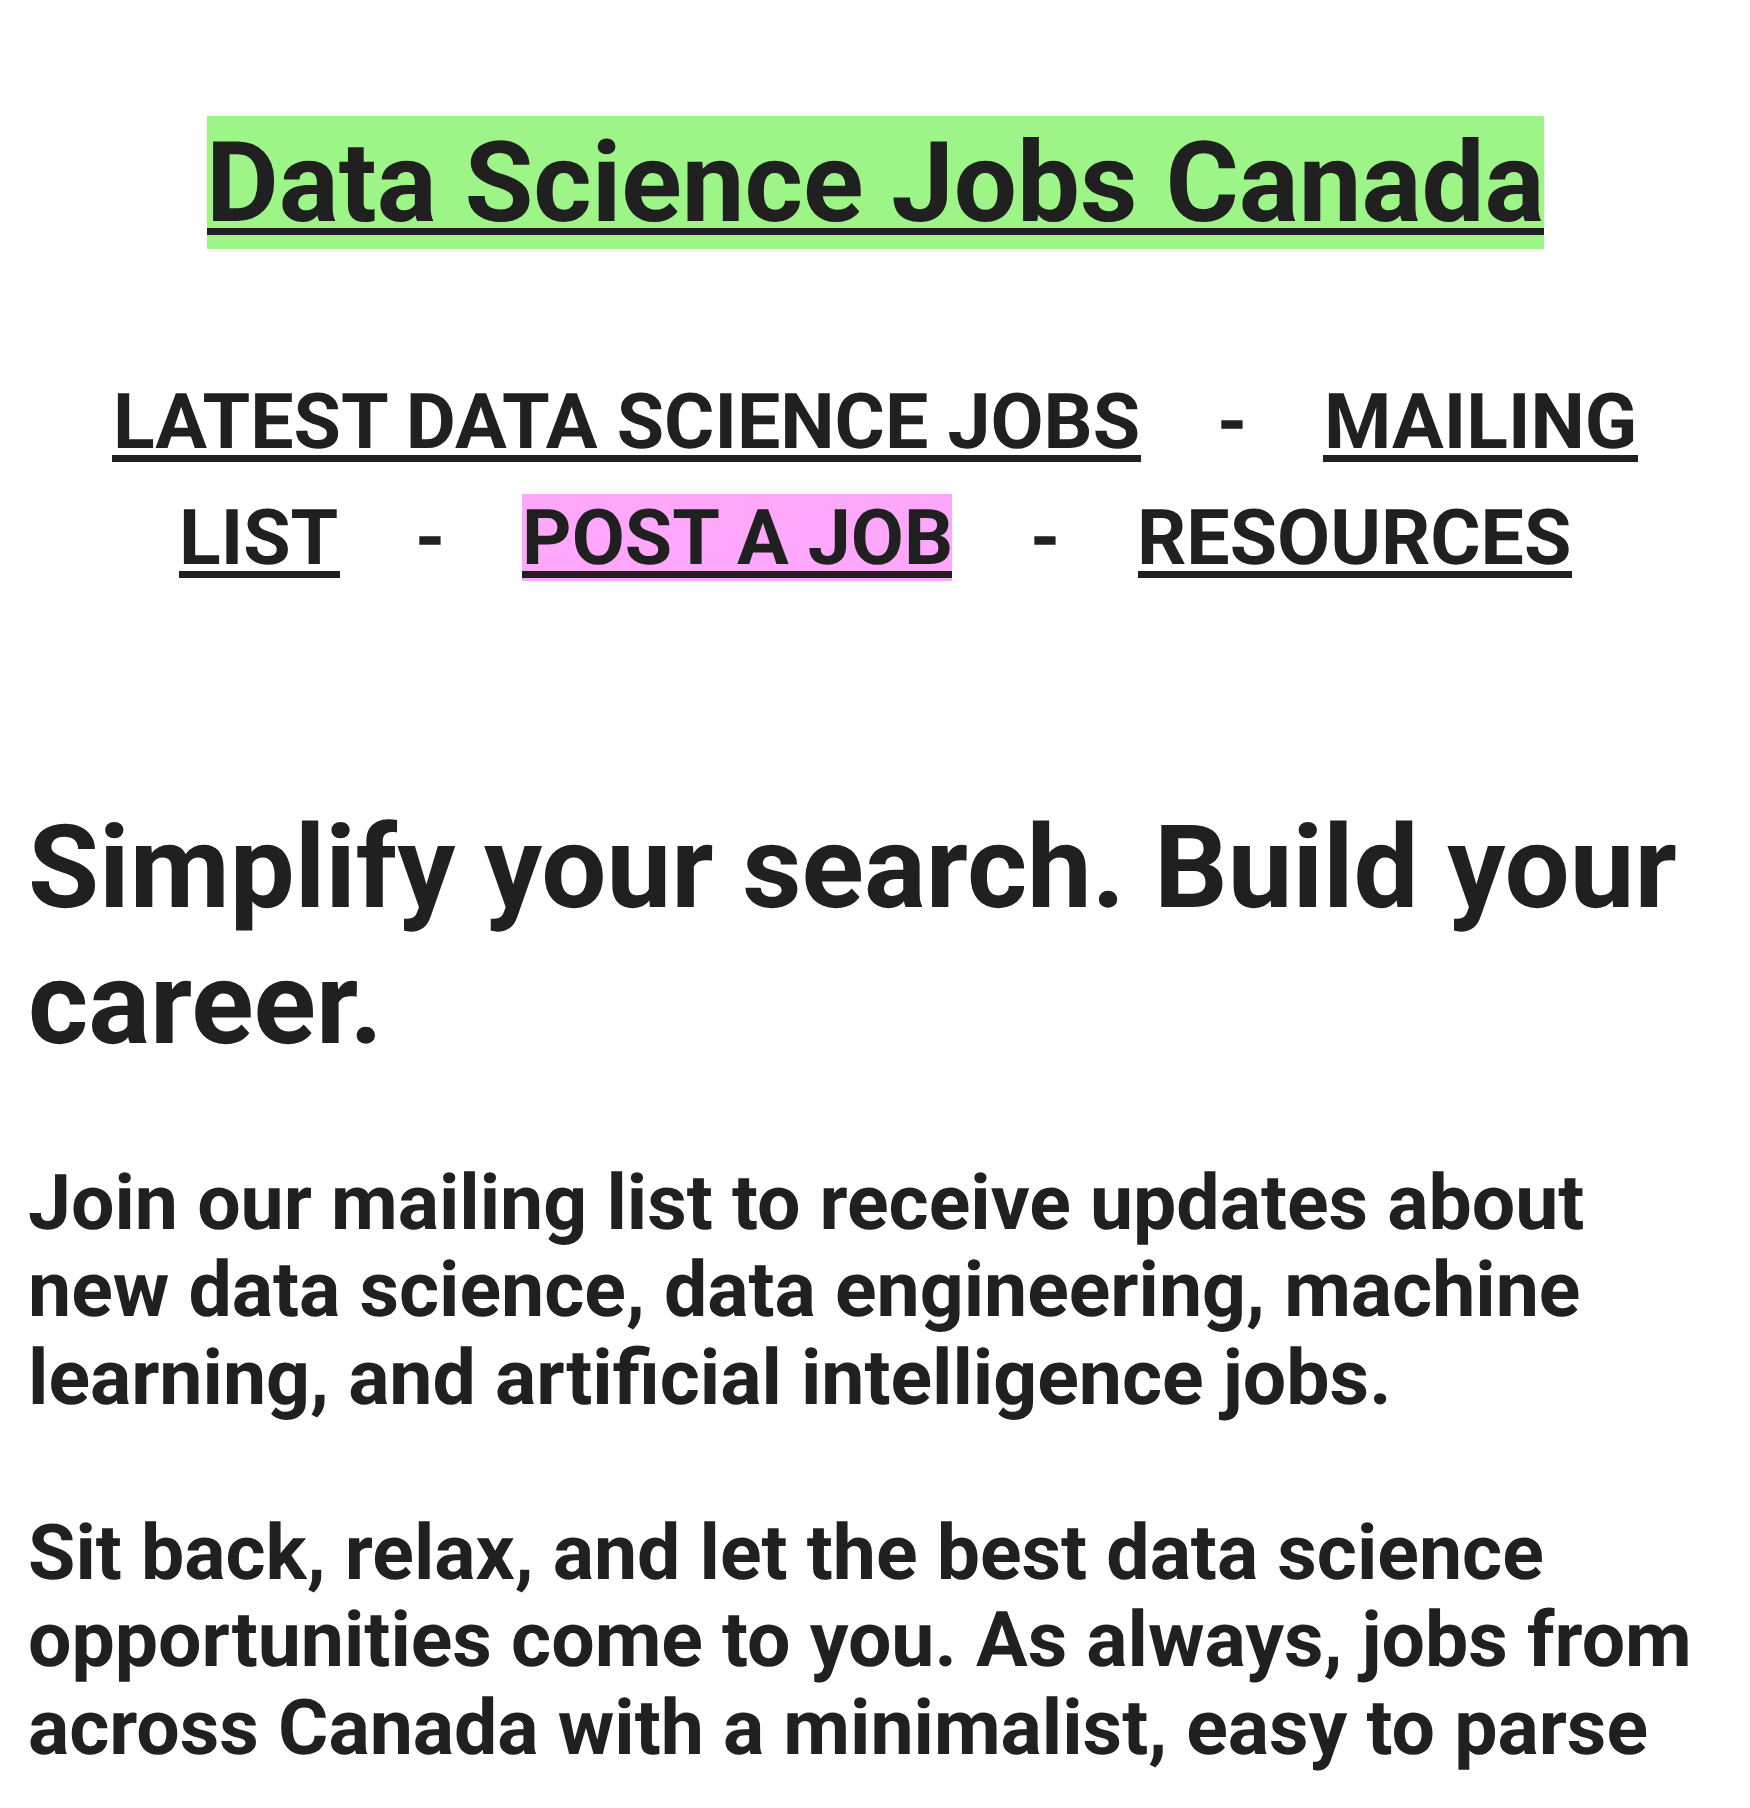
<svg xmlns="http://www.w3.org/2000/svg" width="1750" height="1808">
<rect width="100%" height="100%" fill="#fff"/>
<rect x="207" y="116" width="1337" height="133" fill="#9cf586"/>
<text x="206" y="221" style="font-family:Roboto;font-size:112px;font-weight:bold;fill:#202020">Data Science Jobs Canada</text>
<rect x="207" y="228" width="1337" height="7" fill="#202020"/>
<text x="113" y="448" style="font-family:Roboto;font-size:77px;font-weight:bold;fill:#202020">LATEST DATA SCIENCE JOBS</text>
<rect x="112" y="455" width="1029" height="7" fill="#202020"/>
<text x="1217" y="448" style="font-family:Roboto;font-size:77px;font-weight:bold;fill:#202020">-</text>
<text x="1324" y="448" style="font-family:Roboto;font-size:77px;font-weight:bold;fill:#202020">MAILING</text>
<rect x="1323" y="455" width="315" height="7" fill="#202020"/>
<text x="179" y="564" style="font-family:Roboto;font-size:77px;font-weight:bold;fill:#202020">LIST</text>
<rect x="179" y="571" width="161" height="7" fill="#202020"/>
<text x="415" y="564" style="font-family:Roboto;font-size:77px;font-weight:bold;fill:#202020">-</text>
<rect x="522" y="494" width="430" height="87" fill="#ffa7fb"/>
<text x="522" y="564" style="font-family:Roboto;font-size:77px;font-weight:bold;fill:#202020">POST A JOB</text>
<rect x="522" y="571" width="430" height="7" fill="#202020"/>
<text x="1030" y="564" style="font-family:Roboto;font-size:77px;font-weight:bold;fill:#202020">-</text>
<text x="1137" y="564" style="font-family:Roboto;font-size:77px;font-weight:bold;fill:#202020">RESOURCES</text>
<rect x="1138" y="571" width="434" height="7" fill="#202020"/>
<text x="28" y="907" style="font-family:Roboto;font-size:115.5px;font-weight:bold;fill:#202020">Simplify your search. Build your</text>
<text x="28" y="1043" style="font-family:Roboto;font-size:115.5px;font-weight:bold;fill:#202020">career.</text>
<text x="28" y="1229" style="font-family:Roboto;font-size:77px;font-weight:bold;fill:#202020">Join our mailing list to receive updates about</text>
<text x="28" y="1316" style="font-family:Roboto;font-size:77px;font-weight:bold;fill:#202020">new data science, data engineering, machine</text>
<text x="28" y="1404" style="font-family:Roboto;font-size:77px;font-weight:bold;fill:#202020">learning, and artificial intelligence jobs.</text>
<text x="28" y="1579" style="font-family:Roboto;font-size:77px;font-weight:bold;fill:#202020">Sit back, relax, and let the best data science</text>
<text x="28" y="1666" style="font-family:Roboto;font-size:77px;font-weight:bold;fill:#202020">opportunities come to you. As always, jobs from</text>
<text x="28" y="1754" style="font-family:Roboto;font-size:77px;font-weight:bold;fill:#202020">across Canada with a minimalist, easy to parse</text>
</svg>
